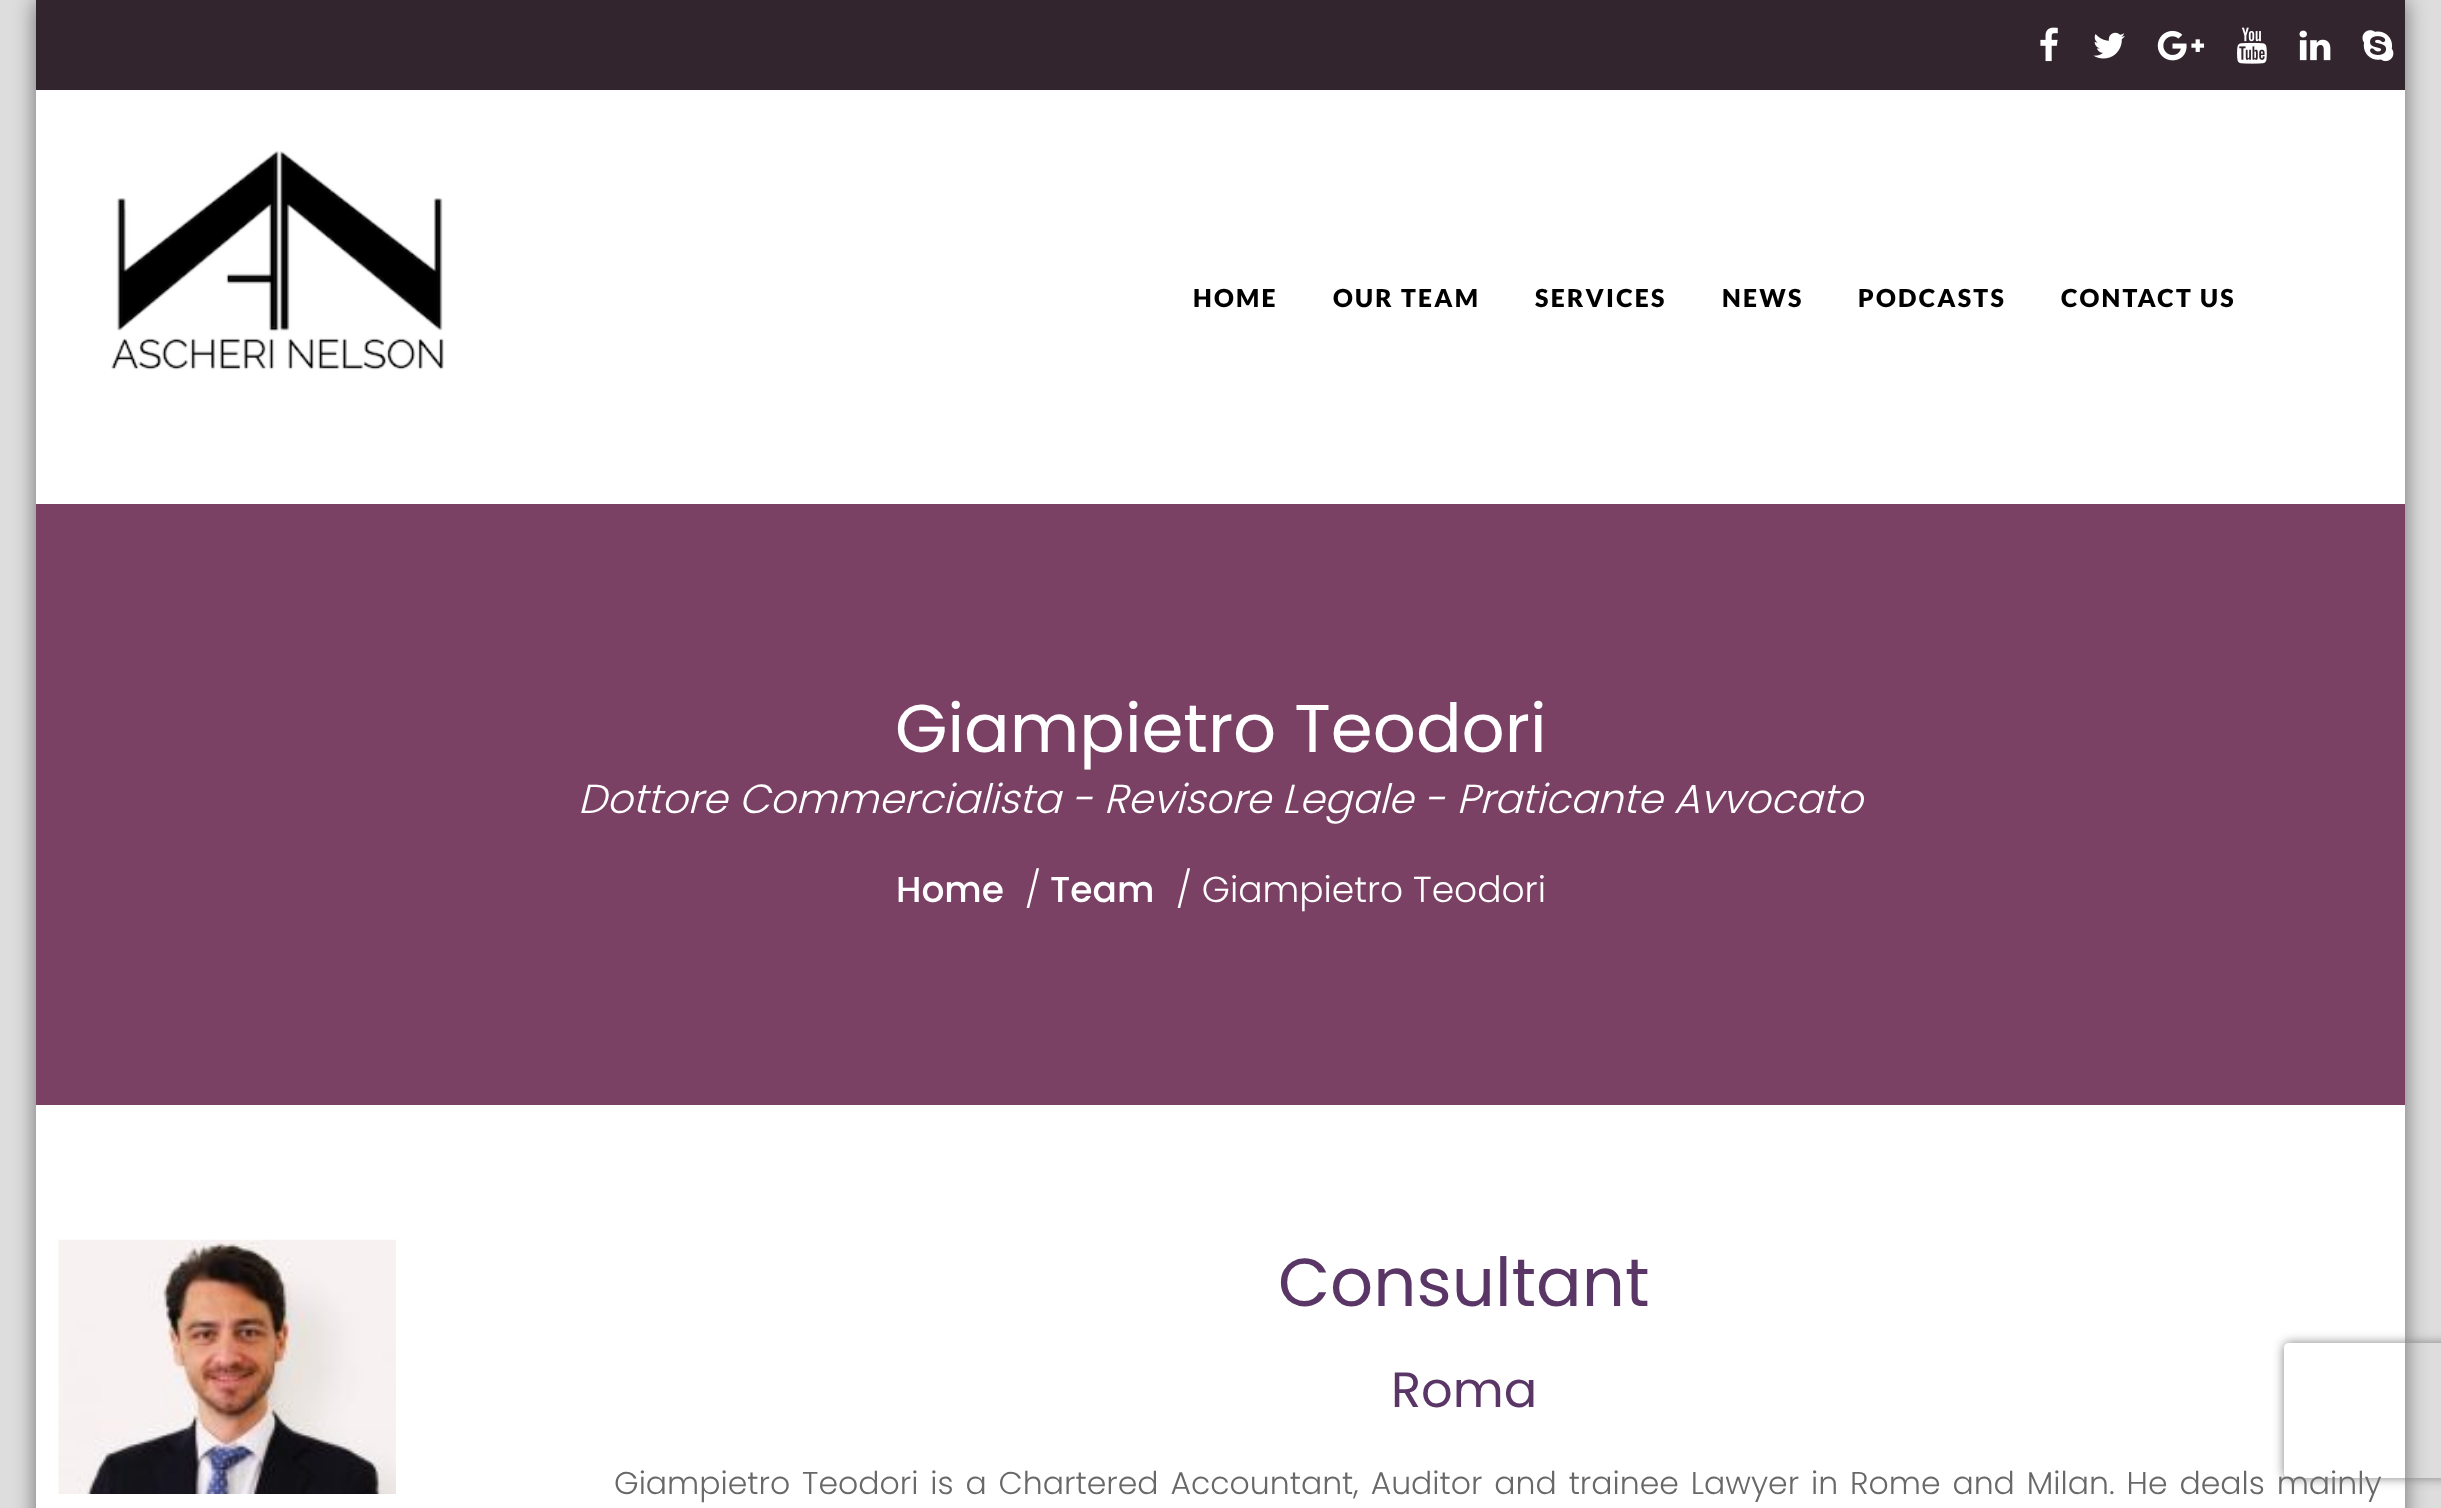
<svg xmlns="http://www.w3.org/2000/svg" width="2441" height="1508">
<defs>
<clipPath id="clip1"><path d="M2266 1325h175v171h-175zm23 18h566c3 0 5 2 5 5v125c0 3-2 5-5 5h-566c-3 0-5-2-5-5v-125c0-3 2-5 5-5z" clip-rule="evenodd"/></clipPath>
</defs>
<rect width="100%" height="100%" fill="#ddd"/>
<rect x="36" width="2369" height="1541" fill="#00000080" filter="blur(11px)"/>
<rect x="36" y="90" width="2369" height="1418" fill="#fff"/>
<rect x="36" width="2369" height="90" fill="#32252d"/>
<image x="2040" y="27" width="18" height="35" href="media/1.png"/>
<image x="2093" y="32" width="32" height="27" href="media/2.png"/>
<image x="2157" y="30" width="48" height="31" href="media/3.png"/>
<image x="2237" y="27" width="30" height="37" href="media/4.png"/>
<image x="2299" y="30" width="32" height="31" href="media/5.png"/>
<image x="2362" y="30" width="32" height="32" href="media/6.png"/>
<image x="111" y="151" width="333" height="219" href="media/7.png"/>
<text x="1193" y="307" style="font-family:Lato;font-size:24.75px;font-weight:900;letter-spacing:2.25px;fill:#000">HOME</text>
<text x="1333" y="307" style="font-family:Lato;font-size:24.75px;font-weight:900;letter-spacing:2.25px;fill:#000">OUR TEAM</text>
<text x="1535" y="307" style="font-family:Lato;font-size:24.75px;font-weight:900;letter-spacing:2.25px;fill:#000">SERVICES</text>
<text x="1722" y="307" style="font-family:Lato;font-size:24.75px;font-weight:900;letter-spacing:2.25px;fill:#000">NEWS</text>
<text x="1858" y="307" style="font-family:Lato;font-size:24.75px;font-weight:900;letter-spacing:2.25px;fill:#000">PODCASTS</text>
<text x="2061" y="307" style="font-family:Lato;font-size:24.75px;font-weight:900;letter-spacing:2.25px;fill:#000">CONTACT US</text>
<rect x="36" y="504" width="2369" height="601" fill="#7b4165"/>
<text x="895" y="752" style="font-family:Poppins;font-size:67.5px;fill:#fff">Giampietro Teodori</text>
<text x="578" y="813" style="font-family:Poppins;font-size:40.5px;font-weight:300;font-style:italic;fill:#fff">Dottore Commercialista - Revisore Legale - Praticante Avvocato</text>
<text x="896" y="902" style="font-family:Poppins;font-size:36px;font-weight:500;fill:#fff">Home</text>
<text x="1025" y="902" style="font-family:Poppins;font-size:36px;font-weight:300;fill:#fff">/</text>
<text x="1050" y="902" style="font-family:Poppins;font-size:36px;font-weight:500;fill:#fff">Team</text>
<text x="1176" y="902" style="font-family:Poppins;font-size:36px;font-weight:300;fill:#fff">/ Giampietro Teodori</text>
<image x="58" y="1239" width="338" height="255" href="media/8.png"/>
<text x="1278" y="1306" style="font-family:Poppins;font-size:67.5px;fill:#5a3666">Consultant</text>
<text x="1391" y="1407" style="font-family:Poppins;font-size:49.5px;fill:#5a3666">Roma</text>
<text x="614" y="1494" word-spacing="3.25" style="font-family:Poppins;font-size:31.5px;font-weight:300;fill:#686868">Giampietro Teodori is a Chartered Accountant, Auditor and trainee Lawyer in Rome and Milan. He deals mainly</text>
<g clip-path="url(#clip1)">
<rect x="2284" y="1343" width="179" height="135" rx="5" fill="#808080" filter="blur(5.5px)"/>
</g>
</svg>
